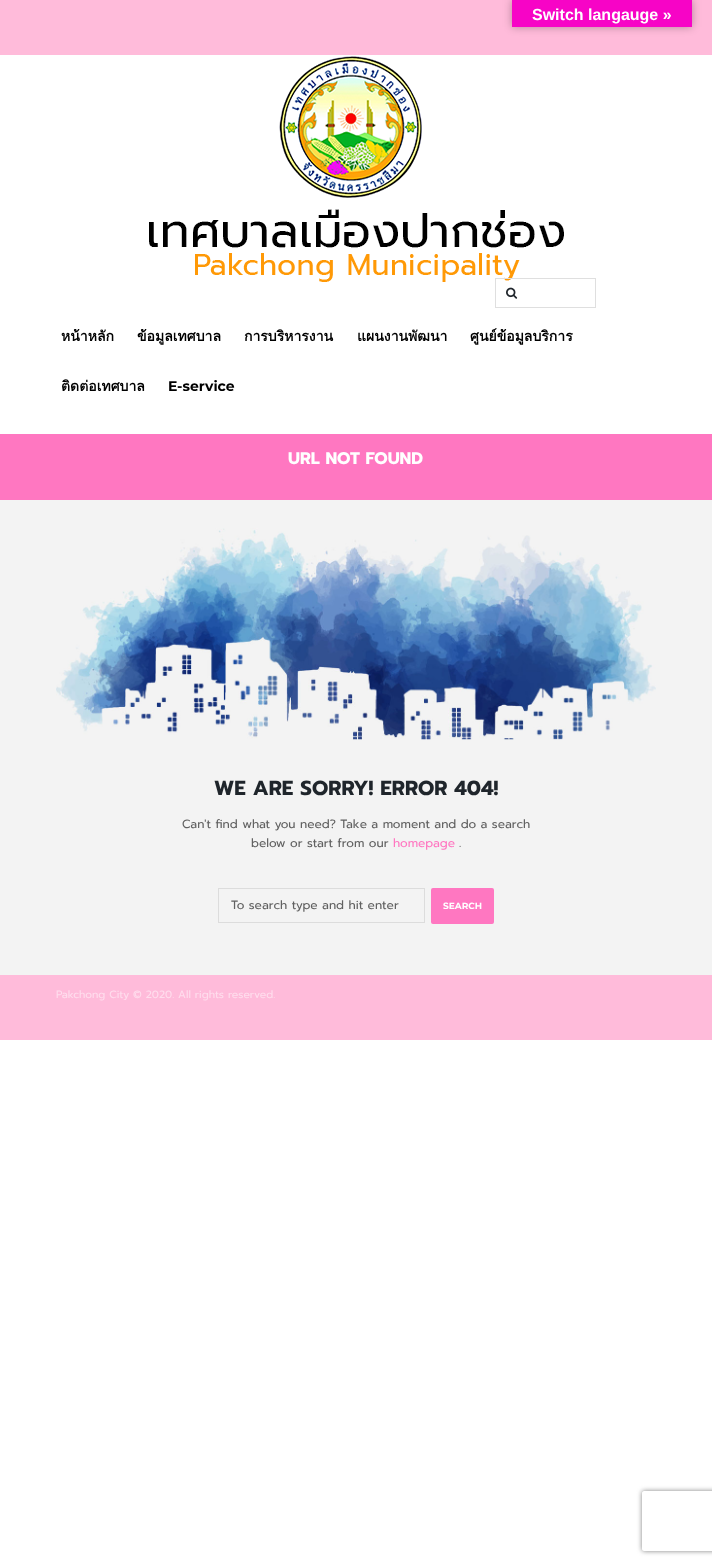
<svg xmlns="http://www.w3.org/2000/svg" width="712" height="1565">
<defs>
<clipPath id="clip1"><path d="M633 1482h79v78h-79zm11 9h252c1 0 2 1 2 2v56c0 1-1 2-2 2h-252c-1 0-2-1-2-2v-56c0-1 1-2 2-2z" clip-rule="evenodd"/></clipPath>
</defs>
<rect width="100%" height="100%" fill="#fff"/>
<rect width="712" height="55" fill="#ffbbda"/>
<rect x="512" width="180" height="27" fill="#0000004d" filter="blur(4.5px)"/>
<rect x="512" width="180" height="27" fill="#f704c6"/>
<text x="532" y="20" style="font-family:Liberation Sans;font-size:16px;font-weight:bold;fill:#fff">Switch langauge »</text>
<rect y="500" width="712" height="475" fill="#f3f3f3"/>
<image x="149" y="56" width="415" height="226" href="media/1.png"/>
<rect x="495.5" y="278.5" width="100" height="29" fill="none" stroke="#dfdfdf"/>
<image x="506" y="287" width="12" height="12" href="media/2.png"/>
<text x="61" y="341" style="font-family:Loma;font-size:14px;font-weight:bold;fill:#000">หน้าหลัก</text>
<text x="137" y="341" style="font-family:Loma;font-size:14px;font-weight:bold;fill:#000">ข้อมูลเทศบาล</text>
<text x="244" y="341" style="font-family:Loma;font-size:14px;font-weight:bold;fill:#000">การบริหารงาน</text>
<text x="357" y="341" style="font-family:Loma;font-size:14px;font-weight:bold;fill:#000">แผนงานพัฒนา</text>
<text x="470" y="341" style="font-family:Loma;font-size:14px;font-weight:bold;fill:#000">ศูนย์ข้อมูลบริการ</text>
<text x="61" y="391" style="font-family:Loma;font-size:14px;font-weight:bold;fill:#000">ติดต่อเทศบาล</text>
<text x="168" y="391" style="font-family:Montserrat;font-size:14px;font-weight:bold;fill:#000">E-service</text>
<rect y="434" width="712" height="66" fill="#ff77c1"/>
<text x="288" y="464" style="font-family:Prompt;font-size:16.75px;font-weight:bold;fill:#fff">URL NOT FOUND</text>
<image x="56" y="528" width="600" height="212" href="media/3.png"/>
<text x="214" y="795" style="font-family:Prompt;font-size:20.4px;font-weight:bold;fill:#1f252b">WE ARE SORRY! ERROR 404!</text>
<text x="182" y="828" style="font-family:Prompt;font-size:12px;fill:#616161">Can't find what you need? Take a moment and do a search</text>
<text x="251" y="847" style="font-family:Prompt;font-size:12px;fill:#616161">below or start from our</text>
<text x="393" y="847" style="font-family:Prompt;font-size:12px;fill:#ff77c1">homepage</text>
<text x="459" y="847" style="font-family:Prompt;font-size:12px;fill:#616161">.</text>
<rect x="218.5" y="888.5" width="206" height="34" fill="none" stroke="#dcdcdc"/>
<text x="231" y="909" style="font-family:Prompt;font-size:12px;fill:#616161">To search type and hit enter</text>
<rect x="432" y="889" width="61" height="34" rx="1" fill="#ff77c1" stroke="#ff77c1" stroke-width="2"/>
<text x="443" y="909" style="font-family:Montserrat;font-size:9px;font-weight:bold;fill:#fff">SEARCH</text>
<rect y="975" width="712" height="65" fill="#ffbbda"/>
<text x="56" y="998" style="font-family:Prompt;font-size:10.6px;fill:#ffdded">Pakchong City © 2020. All rights reserved.</text>
<g clip-path="url(#clip1)">
<rect x="642" y="1491" width="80" height="60" rx="2" fill="#808080" filter="blur(2.5px)"/>
</g>
</svg>
